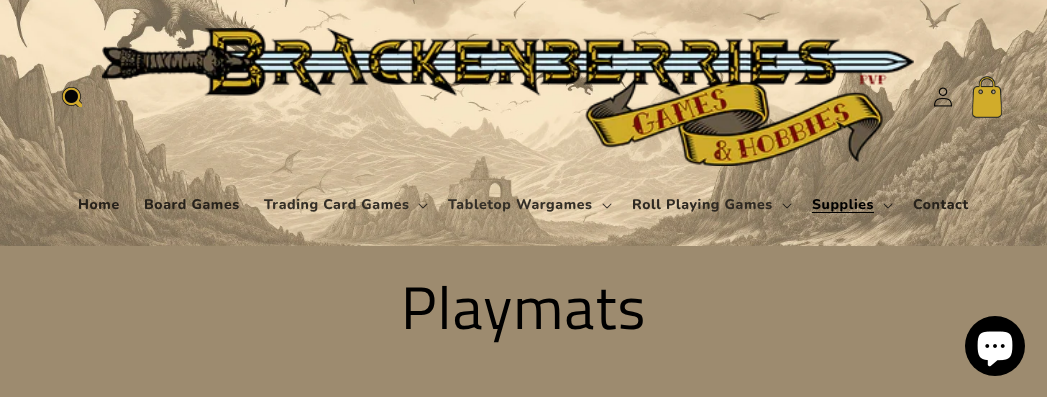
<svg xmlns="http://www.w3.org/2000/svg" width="1047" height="397">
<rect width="100%" height="100%" fill="#9d8b6f"/>
<image x="0" y="0" width="1047" height="246" href="media/1.png"/>
<image x="62" y="87" width="20" height="20" href="media/2.png"/>
<image x="102" y="28" width="812" height="138" href="media/3.png"/>
<image x="934" y="87" width="18" height="20" href="media/4.png"/>
<image x="972" y="76" width="30" height="42" href="media/5.png"/>
<text x="78" y="209" style="font-family:Nunito;font-size:14px;font-weight:800;letter-spacing:0.6px;fill:#27221b">Home</text>
<text x="144" y="209" style="font-family:Nunito;font-size:14px;font-weight:800;letter-spacing:0.6px;fill:#27221b">Board Games</text>
<text x="264" y="209" style="font-family:Nunito;font-size:14px;font-weight:800;letter-spacing:0.6px;fill:#342f27">Trading Card Games</text>
<image x="418" y="203" width="10" height="6" href="media/6.png"/>
<text x="448" y="209" style="font-family:Nunito;font-size:14px;font-weight:800;letter-spacing:0.6px;fill:#342f27">Tabletop Wargames</text>
<image x="602" y="203" width="10" height="6" href="media/7.png"/>
<text x="632" y="209" style="font-family:Nunito;font-size:14px;font-weight:800;letter-spacing:0.6px;fill:#2e2922">Roll Playing Games</text>
<image x="782" y="203" width="10" height="6" href="media/8.png"/>
<text x="812" y="209" style="font-family:Nunito;font-size:14px;font-weight:800;letter-spacing:0.6px;fill:#000">Supplies</text>
<rect x="812" y="212" width="62" height="1" fill="#000"/>
<image x="883" y="203" width="10" height="6" href="media/9.png"/>
<text x="913" y="209" style="font-family:Nunito;font-size:14px;font-weight:800;letter-spacing:0.6px;fill:#27221b">Contact</text>
<text x="401" y="329" style="font-family:Titillium Web;font-size:60px;letter-spacing:1px;fill:#000">Playmats</text>
<circle cx="995" cy="346" r="30" fill="#000"/>
<image x="977" y="331" width="36" height="36" href="media/10.png"/>
</svg>
